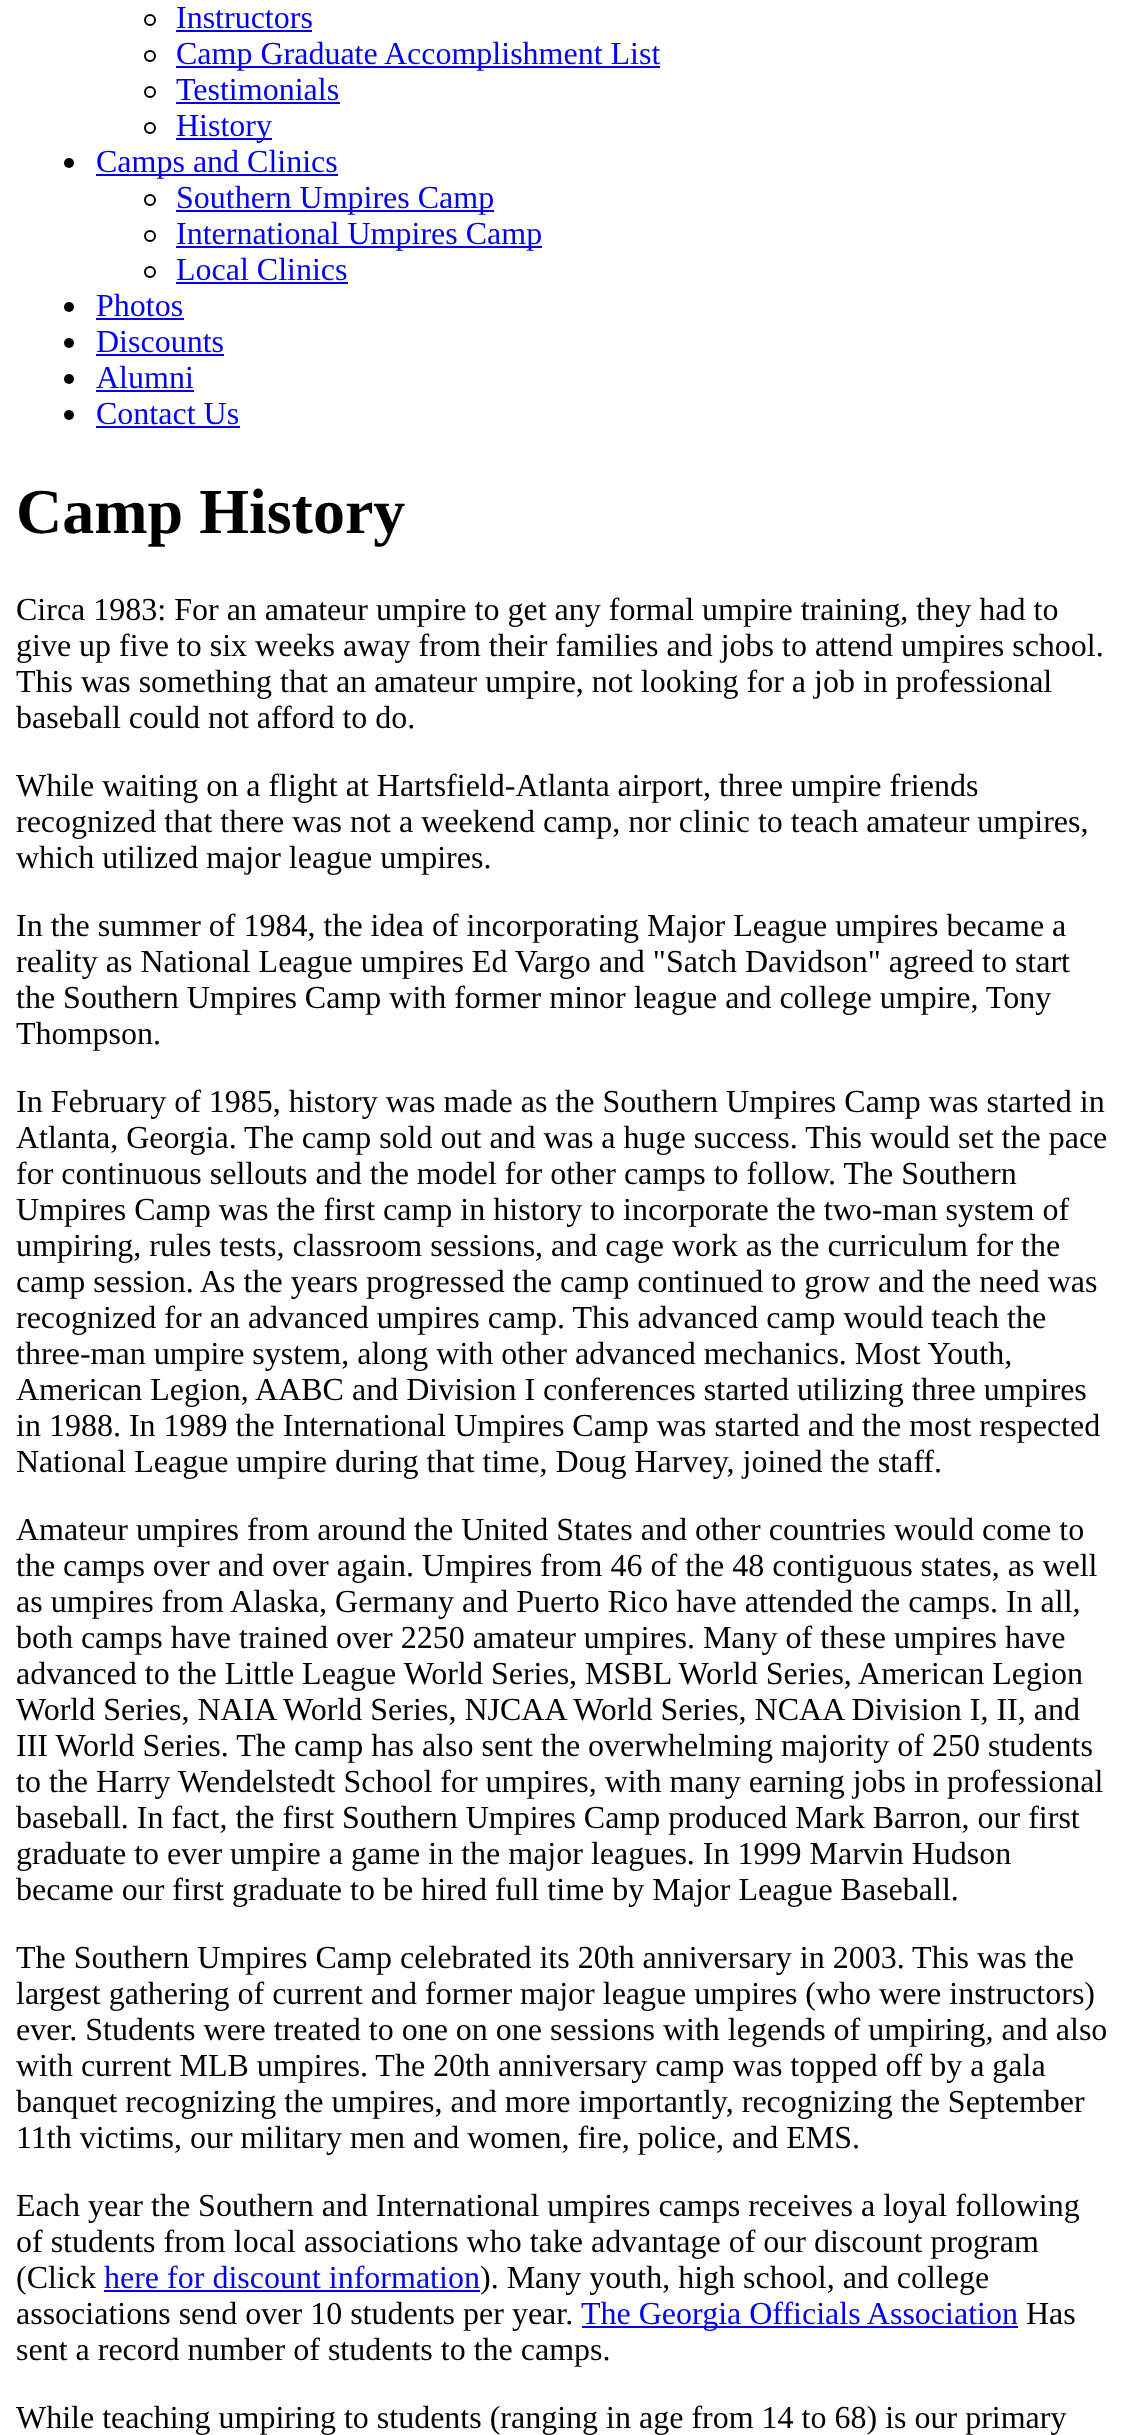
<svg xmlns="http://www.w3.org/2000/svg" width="1124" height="2435">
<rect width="100%" height="100%" fill="#fff"/>
<circle cx="150" cy="20" r="5" fill="none" stroke="#000" stroke-width="2"/>
<text x="176" y="28" style="font-family:Liberation Serif;font-size:32px;fill:#00e">Instructors</text>
<rect x="176" y="30" width="136" height="2" fill="#00e"/>
<circle cx="150" cy="56" r="5" fill="none" stroke="#000" stroke-width="2"/>
<rect x="176" y="66" width="484" height="2" fill="#00e"/>
<text x="176" y="64" style="font-family:Liberation Serif;font-size:32px;fill:#00e">Camp Graduate Accomplishment List</text>
<circle cx="150" cy="92" r="5" fill="none" stroke="#000" stroke-width="2"/>
<text x="176" y="100" style="font-family:Liberation Serif;font-size:32px;fill:#00e">Testimonials</text>
<rect x="176" y="102" width="164" height="2" fill="#00e"/>
<circle cx="150" cy="128" r="5" fill="none" stroke="#000" stroke-width="2"/>
<rect x="176" y="138" width="96" height="2" fill="#00e"/>
<text x="176" y="136" style="font-family:Liberation Serif;font-size:32px;fill:#00e">History</text>
<circle cx="69" cy="163" r="5" fill="#000"/>
<rect x="96" y="174" width="242" height="2" fill="#00e"/>
<text x="96" y="172" style="font-family:Liberation Serif;font-size:32px;fill:#00e">Camps and Clinics</text>
<circle cx="150" cy="200" r="5" fill="none" stroke="#000" stroke-width="2"/>
<rect x="176" y="210" width="318" height="2" fill="#00e"/>
<text x="176" y="208" style="font-family:Liberation Serif;font-size:32px;fill:#00e">Southern Umpires Camp</text>
<circle cx="150" cy="236" r="5" fill="none" stroke="#000" stroke-width="2"/>
<rect x="176" y="246" width="366" height="2" fill="#00e"/>
<text x="176" y="244" style="font-family:Liberation Serif;font-size:32px;fill:#00e">International Umpires Camp</text>
<circle cx="150" cy="272" r="5" fill="none" stroke="#000" stroke-width="2"/>
<text x="176" y="280" style="font-family:Liberation Serif;font-size:32px;fill:#00e">Local Clinics</text>
<rect x="176" y="282" width="172" height="2" fill="#00e"/>
<circle cx="69" cy="307" r="5" fill="#000"/>
<text x="96" y="316" style="font-family:Liberation Serif;font-size:32px;fill:#00e">Photos</text>
<rect x="96" y="318" width="88" height="2" fill="#00e"/>
<circle cx="69" cy="343" r="5" fill="#000"/>
<text x="96" y="352" style="font-family:Liberation Serif;font-size:32px;fill:#00e">Discounts</text>
<rect x="96" y="354" width="128" height="2" fill="#00e"/>
<circle cx="69" cy="379" r="5" fill="#000"/>
<text x="96" y="388" style="font-family:Liberation Serif;font-size:32px;fill:#00e">Alumni</text>
<rect x="96" y="390" width="98" height="2" fill="#00e"/>
<circle cx="69" cy="415" r="5" fill="#000"/>
<text x="96" y="424" style="font-family:Liberation Serif;font-size:32px;fill:#00e">Contact Us</text>
<rect x="96" y="426" width="144" height="2" fill="#00e"/>
<text x="16" y="533" style="font-family:Liberation Serif;font-size:64px;font-weight:bold;fill:#000">Camp History</text>
<text x="16" y="620" style="font-family:Liberation Serif;font-size:32px;fill:#000">Circa 1983: For an amateur umpire to get any formal umpire training, they had to</text>
<text x="16" y="656" style="font-family:Liberation Serif;font-size:32px;fill:#000">give up five to six weeks away from their families and jobs to attend umpires school.</text>
<text x="16" y="692" style="font-family:Liberation Serif;font-size:32px;fill:#000">This was something that an amateur umpire, not looking for a job in professional</text>
<text x="16" y="728" style="font-family:Liberation Serif;font-size:32px;fill:#000">baseball could not afford to do.</text>
<text x="16" y="796" style="font-family:Liberation Serif;font-size:32px;fill:#000">While waiting on a flight at Hartsfield-Atlanta airport, three umpire friends</text>
<text x="16" y="832" style="font-family:Liberation Serif;font-size:32px;fill:#000">recognized that there was not a weekend camp, nor clinic to teach amateur umpires,</text>
<text x="16" y="868" style="font-family:Liberation Serif;font-size:32px;fill:#000">which utilized major league umpires.</text>
<text x="16" y="936" style="font-family:Liberation Serif;font-size:32px;fill:#000">In the summer of 1984, the idea of incorporating Major League umpires became a</text>
<text x="16" y="972" style="font-family:Liberation Serif;font-size:32px;fill:#000">reality as National League umpires Ed Vargo and "Satch Davidson" agreed to start</text>
<text x="16" y="1008" style="font-family:Liberation Serif;font-size:32px;fill:#000">the Southern Umpires Camp with former minor league and college umpire, Tony</text>
<text x="16" y="1044" style="font-family:Liberation Serif;font-size:32px;fill:#000">Thompson.</text>
<text x="16" y="1112" style="font-family:Liberation Serif;font-size:32px;fill:#000">In February of 1985, history was made as the Southern Umpires Camp was started in</text>
<text x="16" y="1148" style="font-family:Liberation Serif;font-size:32px;fill:#000">Atlanta, Georgia. The camp sold out and was a huge success. This would set the pace</text>
<text x="16" y="1184" style="font-family:Liberation Serif;font-size:32px;fill:#000">for continuous sellouts and the model for other camps to follow. The Southern</text>
<text x="16" y="1220" style="font-family:Liberation Serif;font-size:32px;fill:#000">Umpires Camp was the first camp in history to incorporate the two-man system of</text>
<text x="16" y="1256" style="font-family:Liberation Serif;font-size:32px;fill:#000">umpiring, rules tests, classroom sessions, and cage work as the curriculum for the</text>
<text x="16" y="1292" style="font-family:Liberation Serif;font-size:32px;fill:#000">camp session. As the years progressed the camp continued to grow and the need was</text>
<text x="16" y="1328" style="font-family:Liberation Serif;font-size:32px;fill:#000">recognized for an advanced umpires camp. This advanced camp would teach the</text>
<text x="16" y="1364" style="font-family:Liberation Serif;font-size:32px;fill:#000">three-man umpire system, along with other advanced mechanics. Most Youth,</text>
<text x="16" y="1400" style="font-family:Liberation Serif;font-size:32px;fill:#000">American Legion, AABC and Division I conferences started utilizing three umpires</text>
<text x="16" y="1436" style="font-family:Liberation Serif;font-size:32px;fill:#000">in 1988. In 1989 the International Umpires Camp was started and the most respected</text>
<text x="16" y="1472" style="font-family:Liberation Serif;font-size:32px;fill:#000">National League umpire during that time, Doug Harvey, joined the staff.</text>
<text x="16" y="1540" style="font-family:Liberation Serif;font-size:32px;fill:#000">Amateur umpires from around the United States and other countries would come to</text>
<text x="16" y="1576" style="font-family:Liberation Serif;font-size:32px;fill:#000">the camps over and over again. Umpires from 46 of the 48 contiguous states, as well</text>
<text x="16" y="1612" style="font-family:Liberation Serif;font-size:32px;fill:#000">as umpires from Alaska, Germany and Puerto Rico have attended the camps. In all,</text>
<text x="16" y="1648" style="font-family:Liberation Serif;font-size:32px;fill:#000">both camps have trained over 2250 amateur umpires. Many of these umpires have</text>
<text x="16" y="1684" style="font-family:Liberation Serif;font-size:32px;fill:#000">advanced to the Little League World Series, MSBL World Series, American Legion</text>
<text x="16" y="1720" style="font-family:Liberation Serif;font-size:32px;fill:#000">World Series, NAIA World Series, NJCAA World Series, NCAA Division I, II, and</text>
<text x="16" y="1756" style="font-family:Liberation Serif;font-size:32px;fill:#000">III World Series. The camp has also sent the overwhelming majority of 250 students</text>
<text x="16" y="1792" style="font-family:Liberation Serif;font-size:32px;fill:#000">to the Harry Wendelstedt School for umpires, with many earning jobs in professional</text>
<text x="16" y="1828" style="font-family:Liberation Serif;font-size:32px;fill:#000">baseball. In fact, the first Southern Umpires Camp produced Mark Barron, our first</text>
<text x="16" y="1864" style="font-family:Liberation Serif;font-size:32px;fill:#000">graduate to ever umpire a game in the major leagues. In 1999 Marvin Hudson</text>
<text x="16" y="1900" style="font-family:Liberation Serif;font-size:32px;fill:#000">became our first graduate to be hired full time by Major League Baseball.</text>
<text x="16" y="1968" style="font-family:Liberation Serif;font-size:32px;fill:#000">The Southern Umpires Camp celebrated its 20th anniversary in 2003. This was the</text>
<text x="16" y="2004" style="font-family:Liberation Serif;font-size:32px;fill:#000">largest gathering of current and former major league umpires (who were instructors)</text>
<text x="16" y="2040" style="font-family:Liberation Serif;font-size:32px;fill:#000">ever. Students were treated to one on one sessions with legends of umpiring, and also</text>
<text x="16" y="2076" style="font-family:Liberation Serif;font-size:32px;fill:#000">with current MLB umpires. The 20th anniversary camp was topped off by a gala</text>
<text x="16" y="2112" style="font-family:Liberation Serif;font-size:32px;fill:#000">banquet recognizing the umpires, and more importantly, recognizing the September</text>
<text x="16" y="2148" style="font-family:Liberation Serif;font-size:32px;fill:#000">11th victims, our military men and women, fire, police, and EMS.</text>
<text x="16" y="2216" style="font-family:Liberation Serif;font-size:32px;fill:#000">Each year the Southern and International umpires camps receives a loyal following</text>
<text x="16" y="2252" style="font-family:Liberation Serif;font-size:32px;fill:#000">of students from local associations who take advantage of our discount program</text>
<text x="16" y="2288" style="font-family:Liberation Serif;font-size:32px;fill:#000">(Click</text>
<text x="104" y="2288" style="font-family:Liberation Serif;font-size:32px;fill:#00e">here for discount information</text>
<rect x="104" y="2290" width="376" height="2" fill="#00e"/>
<text x="480" y="2288" style="font-family:Liberation Serif;font-size:32px;fill:#000">). Many youth, high school, and college</text>
<text x="16" y="2324" style="font-family:Liberation Serif;font-size:32px;fill:#000">associations send over 10 students per year.</text>
<rect x="582" y="2326" width="436" height="2" fill="#00e"/>
<text x="581" y="2324" style="font-family:Liberation Serif;font-size:32px;fill:#00e">The Georgia Officials Association</text>
<text x="1026" y="2324" style="font-family:Liberation Serif;font-size:32px;fill:#000">Has</text>
<text x="16" y="2360" style="font-family:Liberation Serif;font-size:32px;fill:#000">sent a record number of students to the camps.</text>
<text x="16" y="2428" style="font-family:Liberation Serif;font-size:32px;fill:#000">While teaching umpiring to students (ranging in age from 14 to 68) is our primary</text>
</svg>
